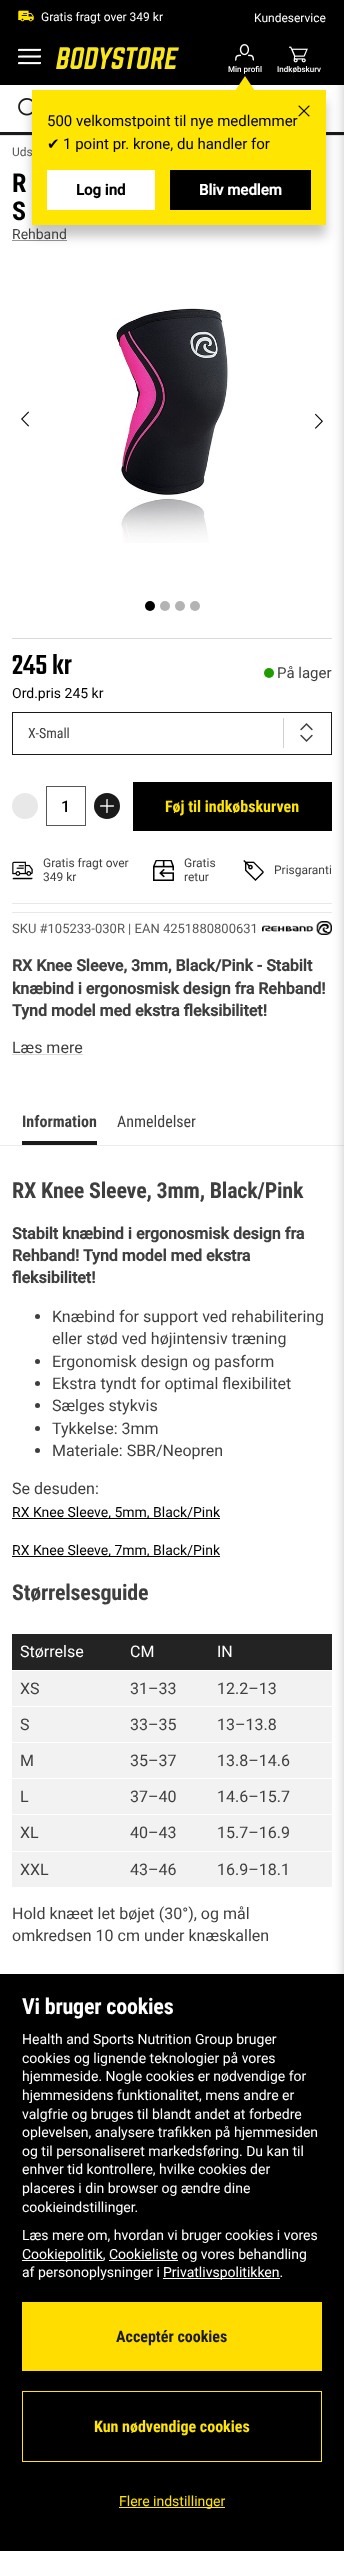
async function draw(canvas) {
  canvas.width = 344;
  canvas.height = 2551;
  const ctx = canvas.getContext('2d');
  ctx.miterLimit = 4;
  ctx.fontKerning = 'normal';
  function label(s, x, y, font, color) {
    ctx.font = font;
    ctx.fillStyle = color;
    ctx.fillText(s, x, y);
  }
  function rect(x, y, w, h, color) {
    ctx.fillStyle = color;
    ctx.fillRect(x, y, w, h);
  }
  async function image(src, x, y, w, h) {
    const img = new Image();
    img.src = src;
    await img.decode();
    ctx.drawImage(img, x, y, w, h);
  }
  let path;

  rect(0, 0, 344, 2551, '#fff');
  rect(0, 0, 344, 85, '#000');
  await image('assets/img1.png', 18, 10, 16, 12);
  label('Gratis fragt over 349 kr', 41, 21, '12px Roboto', '#fff');
  label('Kundeservice', 254, 22, '12px Roboto', '#fff');
  await image('assets/img2.png', 18, 48, 23, 17);
  await image('assets/img3.png', 56, 47, 123, 22);
  await image('assets/img4.png', 235, 44, 19, 17);
  label('Min profil', 228, 72, '500 8px Roboto', '#fff');
  await image('assets/img7.png', 18, 98, 14, 18);
  rect(0, 132, 344, 3, '#1a1a1a');
  rect(0, 135, 344, 1, '#e4e4e7');
  rect(12, 240, 55, 1, '#979797');
  ctx.fillStyle = '#0000003b';
  ctx.filter = 'blur(5.5px)';
  ctx.beginPath();
  ctx.rect(32, 101, 294, 135);
  ctx.fill();
  ctx.filter = 'none';
  label('Uds', 12, 156, '12px Roboto', '#575757');
  rect(32, 90, 294, 135, '#fee502');
  path = new Path2D('M255 91H235L245 76Z');
  ctx.fill(path);
  label('500 velkomstpoint til nye medlemmer', 47, 126, '15px Roboto', '#000');
  rect(297, 117, 1, 1, '#fee502');
  await image('assets/img5.png', 298, 105, 12, 12);
  label('✔', 47, 149, '15px DejaVu Sans', '#000');
  label('1 point pr. krone, du handler for', 63, 149, '15px Roboto', '#000');
  rect(47, 170, 108, 40, '#fff');
  label('Log ind', 76, 195, 'bold 15px Roboto', '#000');
  rect(170, 170, 141, 40, '#000');
  label('Bliv medlem', 199, 195, 'bold 15px Roboto', '#fff');
  await image('assets/img6.png', 289, 46, 19, 17);
  label('Indkøbskurv', 277, 72, '500 8px Roboto', '#fff');
  rect(12, 638, 320, 1, '#dadada');
  ctx.strokeStyle = '#1a1a1a';
  ctx.strokeRect(12.5, 712.5, 319, 42);
  rect(133, 782, 199, 49, '#000');
  rect(12, 903, 320, 1, '#e8e8e8');
  rect(12, 912, 320, 1, '#e8e8e8');
  await image('assets/img16.png', 262, 921, 70, 14);
  rect(0, 1145, 344, 1, '#ececec');
  rect(12, 1634, 320, 36, '#232323');
  rect(12, 1671, 320, 216, '#f2f2f2');
  rect(12, 1706, 321, 1, '#fff');
  rect(12, 1742, 321, 1, '#fff');
  rect(12, 1778, 321, 1, '#fff');
  rect(12, 1814, 321, 1, '#fff');
  rect(12, 1851, 321, 1, '#fff');
  ctx.fillStyle = '#0000003b';
  ctx.filter = 'blur(5.5px)';
  ctx.beginPath();
  ctx.rect(344, 0, 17, 2551);
  ctx.fill();
  ctx.filter = 'none';
  ctx.letterSpacing = '-0.2px';
  label('R', 12, 192, 'bold 26px Roboto Condensed', '#000');
  label('S', 12, 220, 'bold 26px Roboto Condensed', '#000');
  ctx.letterSpacing = '0px';
  label('Rehband', 12, 239, '14px Roboto', '#3f3f3f');
  await image('assets/img8.png', 21, 411, 8, 16);
  await image('assets/img9.png', 115, 308, 114, 235);
  await image('assets/img10.png', 315, 413, 8, 16);
  ctx.fillStyle = '#000';
  ctx.beginPath();
  ctx.arc(150, 606, 5, 0, 2 * Math.PI);
  ctx.fill();
  ctx.fillStyle = '#b3b3b3';
  ctx.beginPath();
  ctx.arc(165, 606, 5, 0, 2 * Math.PI);
  ctx.fill();
  ctx.beginPath();
  ctx.arc(180, 606, 5, 0, 2 * Math.PI);
  ctx.fill();
  ctx.beginPath();
  ctx.arc(195, 606, 5, 0, 2 * Math.PI);
  ctx.fill();
  label('245 kr', 12, 674, '300 30px Teko', '#000');
  label('Ord.pris 245 kr', 12, 698, '14px Roboto', '#000');
  ctx.fillStyle = '#209c00';
  ctx.beginPath();
  ctx.arc(269, 673, 5, 0, 2 * Math.PI);
  ctx.fill();
  label('På lager', 277, 678, '15px Roboto', '#3f3f3f');
  label('X-Small', 28, 738, '14px Roboto Condensed', '#3f3f3f');
  rect(283, 718, 1, 30, '#d1d1d1');
  await image('assets/img11.png', 300, 723, 13, 19);
  ctx.fillStyle = '#e8e8e8';
  ctx.beginPath();
  ctx.arc(25, 806, 13, 0, 2 * Math.PI);
  ctx.fill();
  ctx.strokeStyle = '#575757';
  ctx.strokeRect(46.5, 786.5, 39, 39);
  label('1', 61, 812, '500 16px Roboto', '#000');
  ctx.fillStyle = '#1a1a1a';
  ctx.beginPath();
  ctx.arc(107, 806, 13, 0, 2 * Math.PI);
  ctx.fill();
  await image('assets/img12.png', 100, 799, 14, 14);
  label('Føj til indkøbskurven', 165, 812, 'bold 16px Roboto Condensed', '#fee502');
  await image('assets/img13.png', 12, 861, 21, 19);
  label('Gratis fragt over', 43, 867, '12px Roboto', '#3f3f3f');
  label('349 kr', 43, 881, '12px Roboto', '#3f3f3f');
  await image('assets/img14.png', 153, 860, 21, 21);
  label('Gratis', 184, 867, '12px Roboto', '#3f3f3f');
  label('retur', 184, 881, '12px Roboto', '#3f3f3f');
  await image('assets/img15.png', 243, 860, 21, 21);
  label('Prisgaranti', 274, 874, '12px Roboto', '#3f3f3f');
  label('SKU #105233-030R | EAN 4251880800631', 12, 933, '13px Roboto', '#575757');
  label('RX Knee Sleeve, 3mm, Black/Pink - Stabilt', 12, 971, 'bold 16px Roboto', '#3f3f3f');
  label('knæbind i ergonosmisk design fra Rehband!', 12, 994, 'bold 16px Roboto', '#3f3f3f');
  label('Tynd model med ekstra fleksibilitet!', 12, 1016, 'bold 16px Roboto', '#3f3f3f');
  label('Læs mere', 12, 1053, '16px Roboto', '#3f3f3f');
  rect(12, 1054, 71, 1, '#dadada');
  label('Information', 22, 1127, 'bold 16px Roboto Condensed', '#3f3f3f');
  rect(22, 1141, 75, 4, '#1a1a1a');
  label('Anmeldelser', 117, 1127, '16px Roboto Condensed', '#3f3f3f');
  ctx.letterSpacing = '-0.2px';
  label('RX Knee Sleeve, 3mm, Black/Pink', 12, 1198, 'bold 22px Roboto Condensed', '#3f3f3f');
  ctx.letterSpacing = '0px';
  label('Stabilt knæbind i ergonosmisk design fra', 12, 1239, 'bold 16px Roboto', '#3f3f3f');
  label('Rehband! Tynd model med ekstra', 12, 1261, 'bold 16px Roboto', '#3f3f3f');
  label('fleksibilitet!', 12, 1283, 'bold 16px Roboto', '#3f3f3f');
  ctx.fillStyle = '#3e3e3e';
  ctx.beginPath();
  ctx.arc(37.5, 1316.5, 2.5, 0, 2 * Math.PI);
  ctx.fill();
  label('Knæbind for support ved rehabilitering', 52, 1322, '16px Roboto', '#3f3f3f');
  label('eller stød ved højintensiv træning', 52, 1344, '16px Roboto', '#3f3f3f');
  ctx.fillStyle = '#3e3e3e';
  ctx.beginPath();
  ctx.arc(37.5, 1361.5, 2.5, 0, 2 * Math.PI);
  ctx.fill();
  label('Ergonomisk design og pasform', 52, 1367, '16px Roboto', '#3f3f3f');
  ctx.fillStyle = '#3e3e3e';
  ctx.beginPath();
  ctx.arc(37.5, 1383.5, 2.5, 0, 2 * Math.PI);
  ctx.fill();
  label('Ekstra tyndt for optimal flexibilitet', 52, 1389, '16px Roboto', '#3f3f3f');
  ctx.fillStyle = '#3e3e3e';
  ctx.beginPath();
  ctx.arc(37.5, 1405.5, 2.5, 0, 2 * Math.PI);
  ctx.fill();
  label('Sælges stykvis', 52, 1411, '16px Roboto', '#3f3f3f');
  ctx.fillStyle = '#3e3e3e';
  ctx.beginPath();
  ctx.arc(37.5, 1428.5, 2.5, 0, 2 * Math.PI);
  ctx.fill();
  label('Tykkelse: 3mm', 52, 1434, '16px Roboto', '#3f3f3f');
  ctx.fillStyle = '#3e3e3e';
  ctx.beginPath();
  ctx.arc(37.5, 1450.5, 2.5, 0, 2 * Math.PI);
  ctx.fill();
  label('Materiale: SBR/Neopren', 52, 1456, '16px Roboto', '#3f3f3f');
  label('Se desuden:', 12, 1494, '16px Roboto', '#3f3f3f');
  rect(12, 1518, 208, 1, '#000');
  label('RX Knee Sleeve, 5mm, Black/Pink', 12, 1517, '14px Roboto', '#000');
  rect(12, 1556, 208, 1, '#000');
  label('RX Knee Sleeve, 7mm, Black/Pink', 12, 1555, '14px Roboto', '#000');
  ctx.letterSpacing = '-0.2px';
  label('Størrelsesguide', 12, 1600, 'bold 22px Roboto Condensed', '#3f3f3f');
  ctx.letterSpacing = '0px';
  label('Størrelse', 20, 1657, '16px Roboto', '#fff');
  label('CM', 130, 1657, '16px Roboto', '#fff');
  label('IN', 217, 1657, '16px Roboto', '#fff');
  label('XS', 20, 1694, '16px Roboto', '#3f3f3f');
  label('31–33', 130, 1694, '16px Roboto', '#3f3f3f');
  label('12.2–13', 217, 1694, '16px Roboto', '#3f3f3f');
  label('S', 20, 1730, '16px Roboto', '#3f3f3f');
  label('33–35', 130, 1730, '16px Roboto', '#3f3f3f');
  label('13–13.8', 217, 1730, '16px Roboto', '#3f3f3f');
  label('M', 20, 1766, '16px Roboto', '#3f3f3f');
  label('35–37', 130, 1766, '16px Roboto', '#3f3f3f');
  label('13.8–14.6', 217, 1766, '16px Roboto', '#3f3f3f');
  label('L', 20, 1802, '16px Roboto', '#3f3f3f');
  label('37–40', 130, 1802, '16px Roboto', '#3f3f3f');
  label('14.6–15.7', 217, 1802, '16px Roboto', '#3f3f3f');
  label('XL', 20, 1838, '16px Roboto', '#3f3f3f');
  label('40–43', 130, 1838, '16px Roboto', '#3f3f3f');
  label('15.7–16.9', 217, 1838, '16px Roboto', '#3f3f3f');
  label('XXL', 20, 1875, '16px Roboto', '#3f3f3f');
  label('43–46', 130, 1875, '16px Roboto', '#3f3f3f');
  label('16.9–18.1', 217, 1875, '16px Roboto', '#3f3f3f');
  label('Hold knæet let bøjet (30°), og mål', 12, 1919, '16px Roboto', '#3f3f3f');
  label('omkredsen 10 cm under knæskallen', 12, 1941, '16px Roboto', '#3f3f3f');
  rect(0, 1974, 344, 577, '#000');
  ctx.letterSpacing = '-0.2px';
  label('Vi bruger cookies', 22, 2014, 'bold 22px Roboto Condensed', '#fff');
  ctx.letterSpacing = '0px';
  label('Health and Sports Nutrition Group bruger', 22, 2044, '14px Roboto', '#fff');
  label('cookies og lignende teknologier på vores', 22, 2063, '14px Roboto', '#fff');
  label('hjemmeside. Nogle cookies er nødvendige for', 22, 2081, '14px Roboto', '#fff');
  label('hjemmesidens funktionalitet, mens andre er', 22, 2100, '14px Roboto', '#fff');
  label('valgfrie og bruges til blandt andet at forbedre', 22, 2119, '14px Roboto', '#fff');
  label('oplevelsen, analysere trafikken på hjemmesiden', 22, 2137, '14px Roboto', '#fff');
  label('og til personaliseret markedsføring. Du kan til', 22, 2156, '14px Roboto', '#fff');
  label('enhver tid kontrollere, hvilke cookies der', 22, 2174, '14px Roboto', '#fff');
  label('placeres i din browser og ændre dine', 22, 2193, '14px Roboto', '#fff');
  label('cookieindstillinger.', 22, 2212, '14px Roboto', '#fff');
  label('Læs mere om, hvordan vi bruger cookies i vores', 22, 2240, '14px Roboto', '#fff');
  rect(22, 2260, 81, 1, '#fff');
  label('Cookiepolitik, Cookieliste og vores behandling', 22, 2259, '14px Roboto', '#fff');
  rect(109, 2260, 69, 1, '#fff');
  label('af personoplysninger i', 22, 2277, '14px Roboto', '#fff');
  rect(163, 2278, 117, 1, '#fff');
  label('Privatlivspolitikken.', 163, 2277, '14px Roboto', '#fff');
  rect(22, 2302, 300, 69, '#fd0');
  label('Acceptér cookies', 116, 2342, 'bold 16px Roboto Condensed', '#1a1a1a');
  ctx.strokeStyle = '#fee502';
  ctx.strokeRect(22.5, 2391.5, 299, 70);
  label('Kun nødvendige cookies', 94, 2432, 'bold 16px Roboto Condensed', '#fee502');
  rect(119, 2507, 106, 1, '#fee502');
  label('Flere indstillinger', 119, 2506, '14px Roboto', '#fee502');
}

draw(document.querySelector('canvas'));
